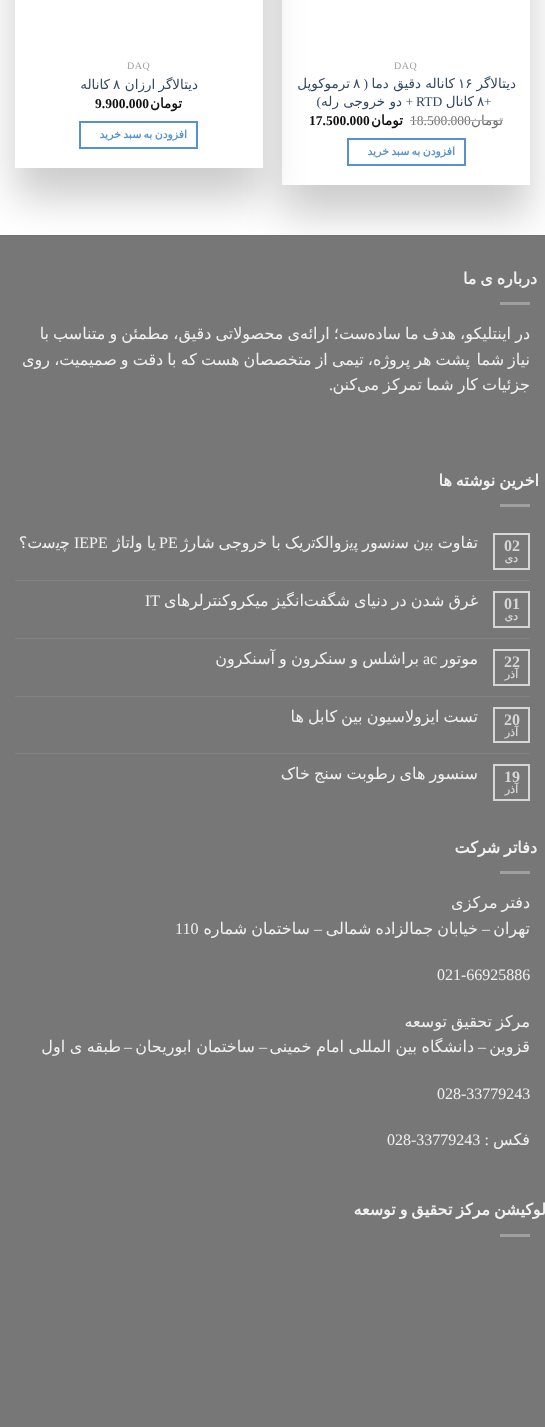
async function draw(canvas) {
  canvas.width = 545;
  canvas.height = 1427;
  const ctx = canvas.getContext('2d');
  ctx.miterLimit = 4;
  ctx.fontKerning = 'normal';
  function label(s, x, y, font, color) {
    ctx.font = font;
    ctx.fillStyle = color;
    ctx.fillText(s, x, y);
  }
  function rect(x, y, w, h, color) {
    ctx.fillStyle = color;
    ctx.fillRect(x, y, w, h);
  }
  let path;

  rect(0, 0, 545, 1427, '#fff');
  ctx.save();
  path = new Path2D('M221 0H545V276H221ZM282-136H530V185H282Z');
  ctx.clip(path, 'evenodd');
  ctx.fillStyle = '#00000033';
  ctx.filter = 'blur(20px)';
  ctx.beginPath();
  ctx.rect(282, -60, 248, 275);
  ctx.fill();
  ctx.filter = 'none';
  ctx.restore();
  ctx.letterSpacing = '0.5px';
  label('DAQ', 394, 69, '10px Liberation Serif', '#a0a0a0');
  ctx.letterSpacing = '0px';
  ctx.direction = 'rtl';
  label('دیتالاگر', 516, 88, '13.5px DejaVu Sans', '#334862');
  ctx.direction = 'ltr';
  label('۱۶', 458, 88, '13.5px DejaVu Sans', '#334862');
  ctx.direction = 'rtl';
  label('کاناله دقیق دما', 455, 88, '13.5px DejaVu Sans', '#334862');
  label('(', 368, 88, '13.5px Liberation Serif', '#334862');
  ctx.direction = 'ltr';
  label('۸', 353, 88, '13.5px DejaVu Sans', '#334862');
  ctx.direction = 'rtl';
  label('ترموکوپل', 350, 88, '13.5px DejaVu Sans', '#334862');
  ctx.direction = 'ltr';
  label('+', 484, 106, '13.5px Liberation Serif', '#334862');
  label('۸', 477, 106, '13.5px DejaVu Sans', '#334862');
  ctx.direction = 'rtl';
  label('کانال', 474, 106, '13.5px DejaVu Sans', '#334862');
  ctx.direction = 'ltr';
  label('RTD', 416, 106, '13.5px Liberation Serif', '#334862');
  ctx.direction = 'rtl';
  label('+', 413, 106, '13.5px Liberation Serif', '#334862');
  label('دو خروجی رله', 402, 106, '13.5px DejaVu Sans', '#334862');
  label(')', 321, 106, '13.5px Liberation Serif', '#334862');
  label('تومان', 503, 125, '13.5px DejaVu Sans', '#707070');
  ctx.direction = 'ltr';
  label('18.500.000', 410, 125, '13.5px Liberation Serif', '#707070');
  rect(471, 120, 32, 1, '#adadad');
  rect(410, 120, 61, 1, '#adadad');
  ctx.direction = 'rtl';
  label('تومان', 403, 125, 'bold 13.5px DejaVu Sans', '#111');
  ctx.direction = 'ltr';
  label('17.500.000', 309, 125, 'bold 13.5px Liberation Serif', '#111');
  ctx.strokeStyle = '#5592cf';
  ctx.lineWidth = 2;
  ctx.strokeRect(348, 139, 117, 26);
  ctx.letterSpacing = '0.3px';
  ctx.wordSpacing = '-1.5px';
  ctx.direction = 'rtl';
  label('افزودن به سبد خرید', 455, 155, 'bold 10.9px DejaVu Sans', '#5592cf');
  ctx.fillStyle = '#00000033';
  ctx.filter = 'blur(20px)';
  ctx.beginPath();
  ctx.rect(15, -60, 248, 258);
  ctx.fill();
  ctx.filter = 'none';
  rect(15, 0, 248, 168, '#fff');
  ctx.letterSpacing = '0.5px';
  ctx.wordSpacing = '0px';
  ctx.direction = 'ltr';
  label('DAQ', 127, 69, '10px Liberation Serif', '#a0a0a0');
  ctx.letterSpacing = '0px';
  ctx.wordSpacing = '-1px';
  ctx.direction = 'rtl';
  label('دیتالاگر ارزان', 198, 89, '13.5px DejaVu Sans', '#334862');
  ctx.wordSpacing = '0px';
  ctx.direction = 'ltr';
  label('۸', 113, 89, '13.5px DejaVu Sans', '#334862');
  ctx.direction = 'rtl';
  label('کاناله', 110, 89, '13.5px DejaVu Sans', '#334862');
  label('تومان', 182, 108, 'bold 13.5px DejaVu Sans', '#111');
  ctx.direction = 'ltr';
  label('9.900.000', 95, 108, 'bold 13.5px Liberation Serif', '#111');
  ctx.strokeRect(80, 122, 117, 26);
  ctx.letterSpacing = '0.3px';
  ctx.wordSpacing = '-1.5px';
  ctx.direction = 'rtl';
  label('افزودن به سبد خرید', 187, 138, 'bold 10.9px DejaVu Sans', '#5592cf');
  rect(0, 236, 545, 1191, '#777');
  rect(0, 235, 545, 1, '#717171');
  ctx.letterSpacing = '0.8px';
  ctx.wordSpacing = '-2px';
  label('درباره ی ما', 537, 284, 'bold 16px DejaVu Sans', '#f1f1f1');
  rect(500, 302, 30, 3, '#a0a0a0');
  ctx.letterSpacing = '0px';
  ctx.wordSpacing = '-1px';
  label('در اینتلیکو، هدف ما ساده', 530, 339, '16px DejaVu Sans', '#f1f1f1');
  label('ی محصولاتی دقیق، مطمئن و متناسب با', 300, 339, '16px DejaVu Sans', '#f1f1f1');
  label('ست؛ ارائه', 368, 339, '16px DejaVu Sans', '#f1f1f1');
  label('نیاز شما', 530, 365, '16px DejaVu Sans', '#f1f1f1');
  label('پشت هر پروژه، تیمی از متخصصان هست که با دقت و صمیمیت، روی', 470, 365, '16px DejaVu Sans', '#f1f1f1');
  label('جزئیات کار شما تمرکز می', 530, 390, '16px DejaVu Sans', '#f1f1f1');
  ctx.wordSpacing = '0px';
  label('کنن', 357, 390, '16px DejaVu Sans', '#f1f1f1');
  label('.', 333, 390, '16px Liberation Serif', '#f1f1f1');
  ctx.letterSpacing = '0.8px';
  ctx.wordSpacing = '-2px';
  label('اخرین نوشته ها', 539, 486, 'bold 16px DejaVu Sans', '#f1f1f1');
  rect(500, 504, 30, 3, '#a0a0a0');
  ctx.strokeStyle = '#d6d6d6';
  ctx.strokeRect(494, 534, 35, 35);
  ctx.letterSpacing = '0px';
  ctx.wordSpacing = '0px';
  ctx.direction = 'ltr';
  label('02', 504, 551, 'bold 16px Liberation Serif', '#d6d6d6');
  ctx.direction = 'rtl';
  label('دی', 518, 562, 'bold 11px DejaVu Sans', '#d6d6d6');
  ctx.wordSpacing = '-1px';
  label('ﺗﻔﺎﻭﺕ ﺑﻳﻥ ﺳﻧﺳﻭﺭ ﭘﻳﺯﻭﺍﻟﮑﺗﺭﻳﮏ ﺑﺎ ﺧﺭﻭﺟﯽ ﺷﺎﺭﮊ', 478, 548, '16px DejaVu Sans', '#f1f1f1');
  ctx.wordSpacing = '0px';
  ctx.direction = 'ltr';
  label('PE', 159, 548, '16px Liberation Serif', '#f1f1f1');
  ctx.wordSpacing = '-1px';
  ctx.direction = 'rtl';
  label('ﻳﺎ ﻭﻟﺗﺎﮊ', 156, 548, '16px DejaVu Sans', '#f1f1f1');
  ctx.wordSpacing = '0px';
  ctx.direction = 'ltr';
  label('IEPE', 74, 548, '16px Liberation Serif', '#f1f1f1');
  ctx.direction = 'rtl';
  label('ﭼﻳﺳﺕ؟', 70, 548, '16px DejaVu Sans', '#f1f1f1');
  rect(15, 580, 515, 1, '#828282');
  ctx.strokeRect(494, 592, 35, 35);
  ctx.direction = 'ltr';
  label('01', 504, 609, 'bold 16px Liberation Serif', '#d6d6d6');
  ctx.direction = 'rtl';
  label('دی', 518, 620, 'bold 11px DejaVu Sans', '#d6d6d6');
  ctx.wordSpacing = '-1px';
  label('غرق شدن در دنیای شگفت', 478, 606, '16px DejaVu Sans', '#f1f1f1');
  label('انگیز میکروکنترلرهای', 304, 606, '16px DejaVu Sans', '#f1f1f1');
  ctx.wordSpacing = '0px';
  ctx.direction = 'ltr';
  label('IT', 145, 606, '16px Liberation Serif', '#f1f1f1');
  rect(15, 638, 515, 1, '#828282');
  ctx.strokeRect(494, 650, 35, 35);
  label('22', 504, 667, 'bold 16px Liberation Serif', '#d6d6d6');
  ctx.direction = 'rtl';
  label('آذر', 518, 678, 'bold 11px DejaVu Sans', '#d6d6d6');
  label('موتور', 478, 664, '16px DejaVu Sans', '#f1f1f1');
  ctx.direction = 'ltr';
  label('ac', 423, 664, '16px Liberation Serif', '#f1f1f1');
  ctx.wordSpacing = '-1px';
  ctx.direction = 'rtl';
  label('براشلس و سنکرون و آسنکرون', 419, 664, '16px DejaVu Sans', '#f1f1f1');
  rect(15, 696, 515, 1, '#828282');
  ctx.strokeRect(494, 708, 35, 34);
  ctx.wordSpacing = '0px';
  ctx.direction = 'ltr';
  label('20', 504, 725, 'bold 16px Liberation Serif', '#d6d6d6');
  ctx.direction = 'rtl';
  label('آذر', 518, 736, 'bold 11px DejaVu Sans', '#d6d6d6');
  ctx.wordSpacing = '-1px';
  label('تست ایزولاسیون بین کابل ها', 478, 722, '16px DejaVu Sans', '#f1f1f1');
  rect(15, 753, 515, 1, '#828282');
  ctx.strokeRect(494, 765, 35, 35);
  ctx.wordSpacing = '0px';
  ctx.direction = 'ltr';
  label('19', 504, 782, 'bold 16px Liberation Serif', '#d6d6d6');
  ctx.direction = 'rtl';
  label('آذر', 518, 793, 'bold 11px DejaVu Sans', '#d6d6d6');
  ctx.wordSpacing = '-1px';
  label('سنسور های رطوبت سنج خاک', 478, 779, '16px DejaVu Sans', '#f1f1f1');
  ctx.letterSpacing = '0.8px';
  ctx.wordSpacing = '-2px';
  label('دفاتر شرکت', 537, 853, 'bold 16px DejaVu Sans', '#f1f1f1');
  rect(500, 871, 30, 3, '#a0a0a0');
  ctx.letterSpacing = '0px';
  ctx.wordSpacing = '-1px';
  label('دفتر مرکزی', 530, 908, '16px DejaVu Sans', '#f1f1f1');
  ctx.wordSpacing = '0px';
  label('تهران', 530, 934, '16px DejaVu Sans', '#f1f1f1');
  label('–', 490, 934, '16px Liberation Serif', '#f1f1f1');
  ctx.wordSpacing = '-1px';
  label('خیابان جمالزاده شمالی', 478, 934, '16px DejaVu Sans', '#f1f1f1');
  ctx.wordSpacing = '0px';
  label('–', 322, 934, '16px Liberation Serif', '#f1f1f1');
  ctx.wordSpacing = '-1px';
  label('ساختمان شماره', 310, 934, '16px DejaVu Sans', '#f1f1f1');
  ctx.wordSpacing = '0px';
  ctx.direction = 'ltr';
  label('110', 175, 934, '16px Liberation Serif', '#f1f1f1');
  label('021-66925886', 437, 980, '16px Liberation Serif', '#f1f1f1');
  ctx.wordSpacing = '-1px';
  ctx.direction = 'rtl';
  label('مرکز تحقیق توسعه', 530, 1027, '16px DejaVu Sans', '#f1f1f1');
  ctx.wordSpacing = '0px';
  label('قزوین', 530, 1052, '16px DejaVu Sans', '#f1f1f1');
  label('–', 486, 1052, '16px Liberation Serif', '#f1f1f1');
  ctx.wordSpacing = '-0.5px';
  label('دانشگاه بین المللی امام خمینی', 474, 1052, '16px DejaVu Sans', '#f1f1f1');
  ctx.wordSpacing = '0px';
  label('–', 267, 1052, '16px Liberation Serif', '#f1f1f1');
  ctx.wordSpacing = '-0.5px';
  label('ساختمان ابوریحان', 255, 1052, '16px DejaVu Sans', '#f1f1f1');
  ctx.wordSpacing = '0px';
  label('–', 132, 1052, '16px Liberation Serif', '#f1f1f1');
  ctx.wordSpacing = '-0.5px';
  label('طبقه ی اول', 121, 1052, '16px DejaVu Sans', '#f1f1f1');
  ctx.wordSpacing = '0px';
  ctx.direction = 'ltr';
  label('028-33779243', 437, 1099, '16px Liberation Serif', '#f1f1f1');
  ctx.direction = 'rtl';
  label('فکس', 530, 1145, '16px DejaVu Sans', '#f1f1f1');
  label(':', 489, 1145, '16px Liberation Serif', '#f1f1f1');
  ctx.direction = 'ltr';
  label('028-33779243', 387, 1145, '16px Liberation Serif', '#f1f1f1');
  ctx.letterSpacing = '0.8px';
  ctx.wordSpacing = '-2px';
  ctx.direction = 'rtl';
  label('لوکیشن مرکز تحقیق و توسعه', 546, 1215, 'bold 16px DejaVu Sans', '#f1f1f1');
  rect(500, 1234, 30, 3, '#a0a0a0');
}

draw(document.querySelector('canvas'));
